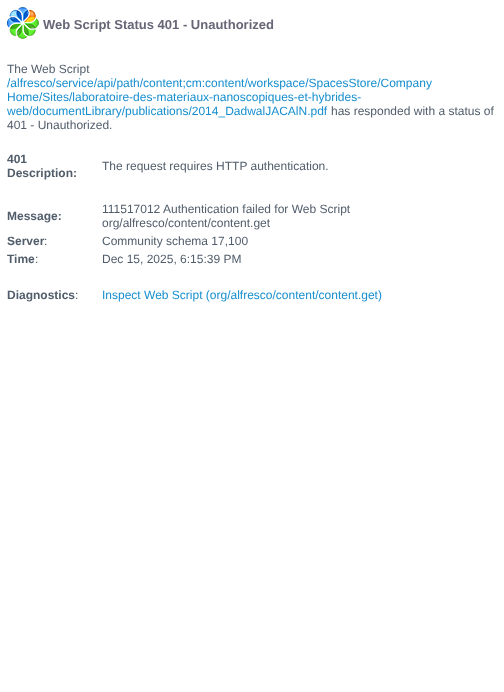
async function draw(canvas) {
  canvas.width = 504;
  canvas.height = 692;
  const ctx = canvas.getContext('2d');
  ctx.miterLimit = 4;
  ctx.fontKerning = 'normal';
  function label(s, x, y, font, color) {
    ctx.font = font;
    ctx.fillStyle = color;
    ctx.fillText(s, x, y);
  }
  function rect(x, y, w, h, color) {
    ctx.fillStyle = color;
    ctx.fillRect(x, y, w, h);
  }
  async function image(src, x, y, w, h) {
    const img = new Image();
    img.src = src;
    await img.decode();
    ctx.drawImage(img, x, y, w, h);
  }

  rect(0, 0, 504, 692, '#fff');
  await image('assets/img1.png', 7, 7, 32, 32);
  label('Web Script Status 401 - Unauthorized', 43, 29, 'bold 13px Liberation Sans', '#667');
  label('The Web Script', 7, 73, '12px Liberation Sans', '#515d6b');
  label('/alfresco/service/api/path/content;cm:content/workspace/SpacesStore/Company', 7, 87, '12px Liberation Sans', '#168ece');
  label('Home/Sites/laboratoire-des-materiaux-nanoscopiques-et-hybrides-', 7, 101, '12px Liberation Sans', '#168ece');
  label('web/documentLibrary/publications/2014_DadwalJACAlN.pdf', 7, 115, '12px Liberation Sans', '#168ece');
  label('has responded with a status of', 331, 115, '12px Liberation Sans', '#515d6b');
  label('401 - Unauthorized.', 7, 129, '12px Liberation Sans', '#515d6b');
  label('401', 7, 163, 'bold 12px Liberation Sans', '#515d6b');
  label('Description:', 7, 177, 'bold 12px Liberation Sans', '#515d6b');
  label('The request requires HTTP authentication.', 102, 170, '12px Liberation Sans', '#515d6b');
  label('Message:', 7, 220, 'bold 12px Liberation Sans', '#515d6b');
  label('111517012 Authentication failed for Web Script', 102, 213, '12px Liberation Sans', '#515d6b');
  label('org/alfresco/content/content.get', 102, 227, '12px Liberation Sans', '#515d6b');
  label('Server', 7, 245, 'bold 12px Liberation Sans', '#515d6b');
  label(':', 44, 245, '12px Liberation Sans', '#515d6b');
  label('Community schema 17,100', 102, 245, '12px Liberation Sans', '#515d6b');
  label('Time', 7, 263, 'bold 12px Liberation Sans', '#515d6b');
  label(':', 35, 263, '12px Liberation Sans', '#515d6b');
  label('Dec 15, 2025, 6:15:39 PM', 102, 263, '12px Liberation Sans', '#515d6b');
  label('Diagnostics', 7, 299, 'bold 12px Liberation Sans', '#515d6b');
  label(':', 75, 299, '12px Liberation Sans', '#515d6b');
  label('Inspect Web Script (org/alfresco/content/content.get)', 102, 299, '12px Liberation Sans', '#168ece');
}

draw(document.querySelector('canvas'));
